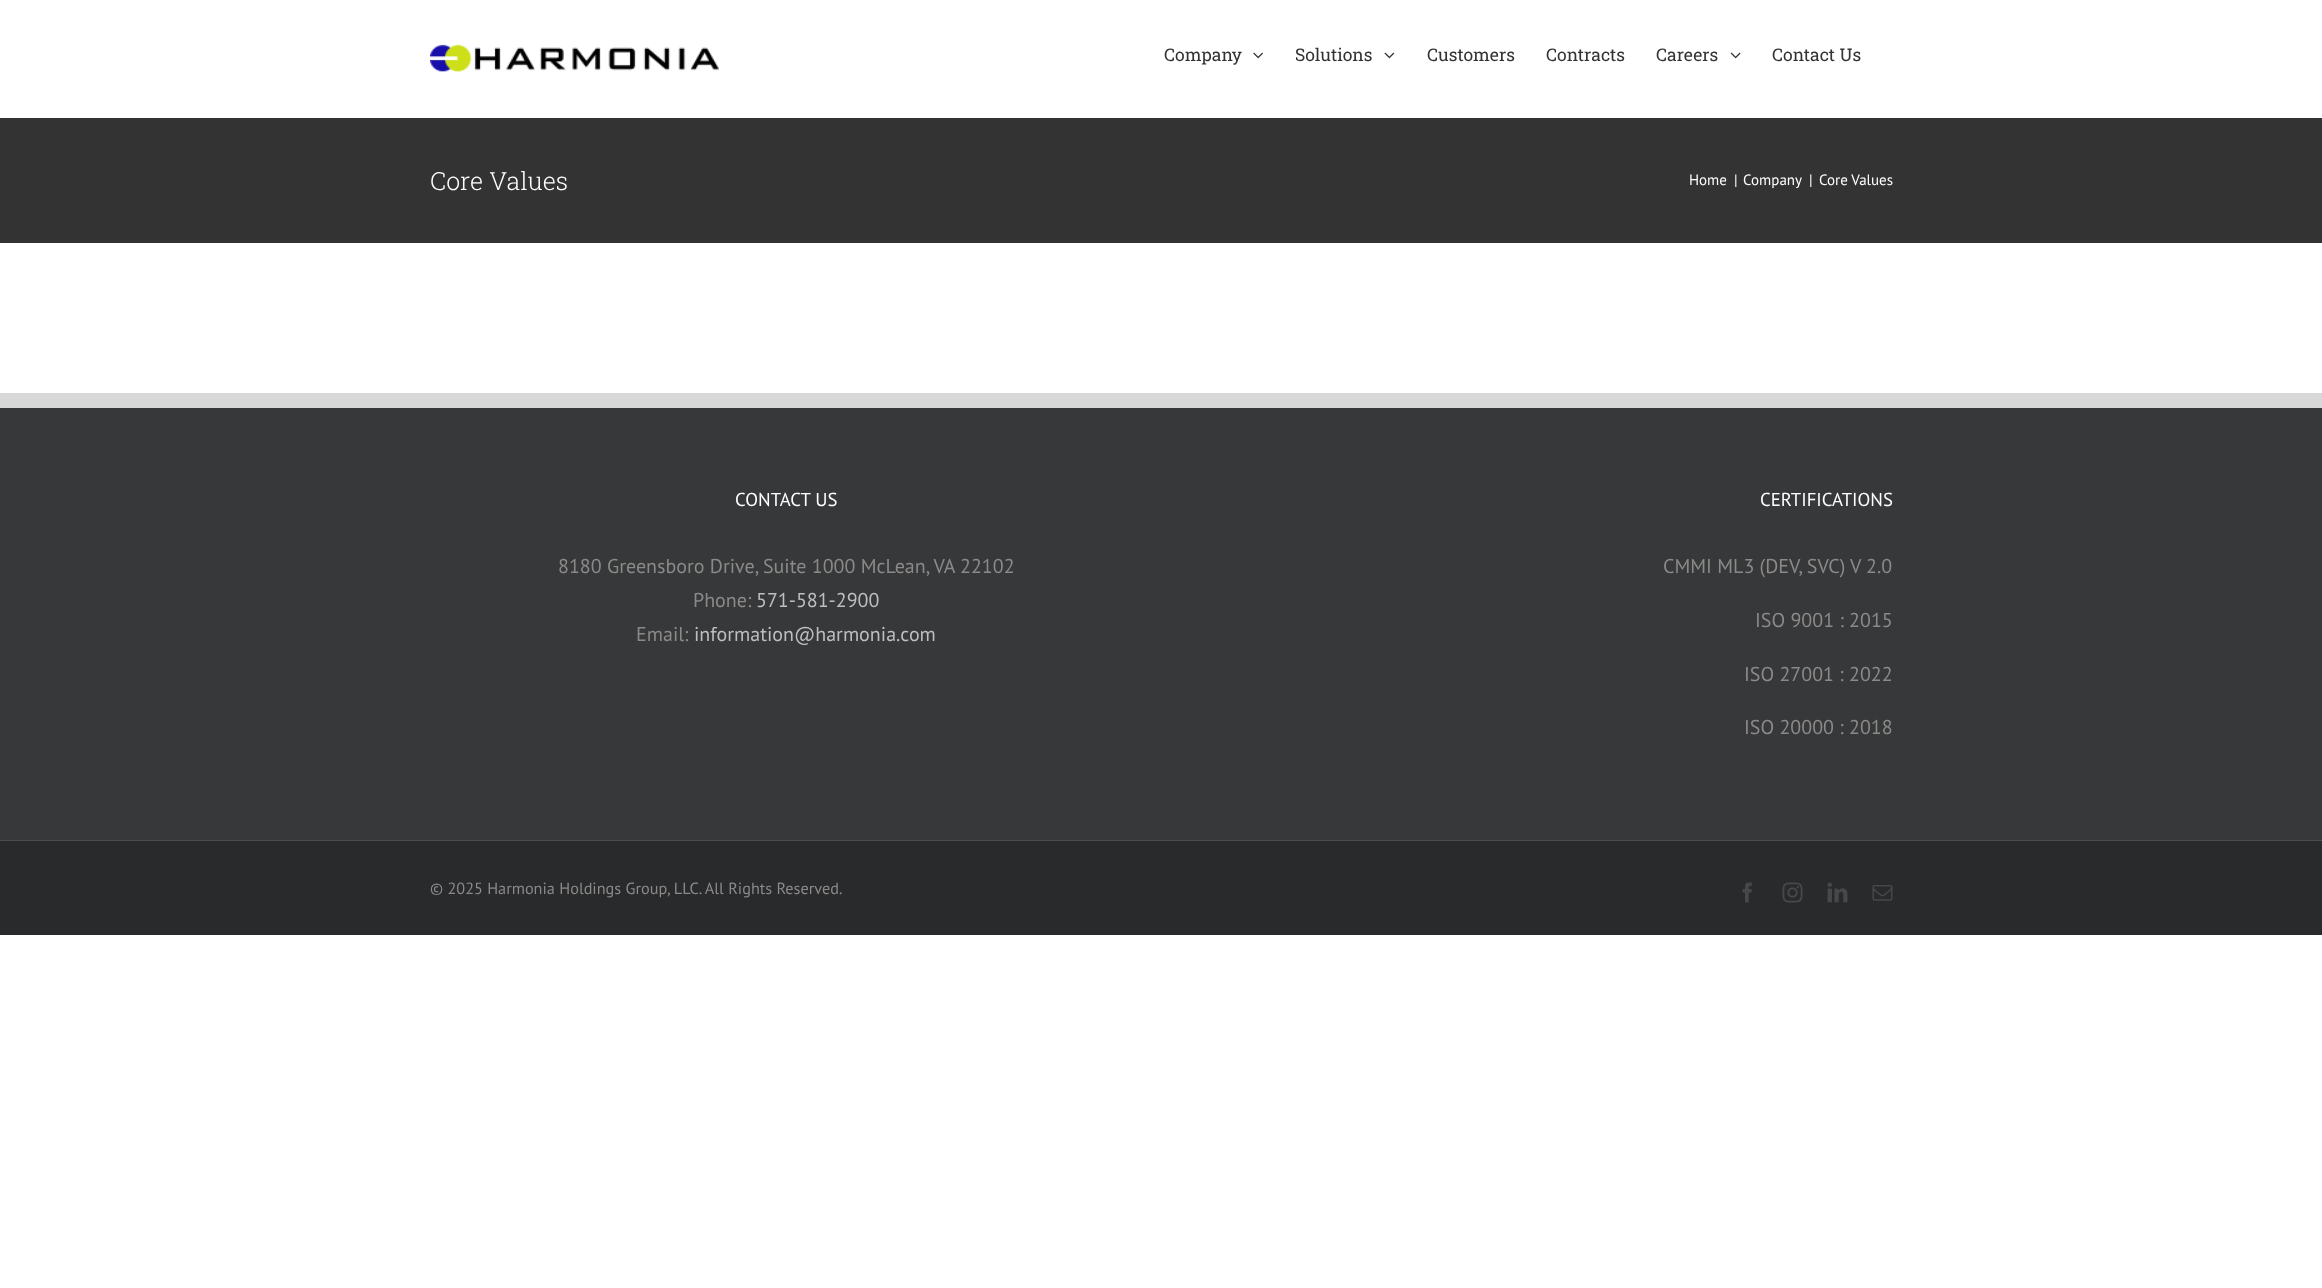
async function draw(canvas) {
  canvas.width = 2322;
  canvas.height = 1288;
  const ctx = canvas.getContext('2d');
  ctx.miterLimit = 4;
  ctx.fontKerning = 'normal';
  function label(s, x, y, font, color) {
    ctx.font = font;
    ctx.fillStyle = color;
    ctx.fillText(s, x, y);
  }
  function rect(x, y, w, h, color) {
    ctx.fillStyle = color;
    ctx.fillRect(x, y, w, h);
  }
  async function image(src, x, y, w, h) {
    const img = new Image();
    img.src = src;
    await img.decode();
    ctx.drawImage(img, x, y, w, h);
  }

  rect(0, 0, 2322, 1288, '#fff');
  await image('assets/img1.png', 430, 44, 289, 28);
  label('Company', 1164, 61, '17.5px Roboto Slab', '#333');
  await image('assets/img2.png', 1253, 52, 10, 7);
  label('Solutions', 1295, 61, '17.5px Roboto Slab', '#333');
  await image('assets/img3.png', 1384, 52, 11, 7);
  label('Customers', 1427, 61, '17.5px Roboto Slab', '#333');
  label('Contracts', 1546, 61, '17.5px Roboto Slab', '#333');
  label('Careers', 1656, 61, '17.5px Roboto Slab', '#333');
  await image('assets/img4.png', 1730, 52, 11, 7);
  label('Contact Us', 1772, 61, '17.5px Roboto Slab', '#333');
  rect(0, 118, 2322, 125, '#333');
  label('Core Values', 430, 190, '300 25px Roboto Slab', '#fff');
  label('Home', 1689, 185, '15px PT Sans', '#fff');
  label('|', 1734, 185, '15px PT Sans', '#fff');
  label('Company', 1743, 185, '15px PT Sans', '#fff');
  label('|', 1809, 185, '15px PT Sans', '#fff');
  label('Core Values', 1819, 185, '15px PT Sans', '#fff');
  rect(0, 408, 2322, 432, '#363839');
  rect(0, 393, 2322, 15, '#d8d8d8');
  label('CONTACT US', 735, 506, '18.75px PT Sans', '#fff');
  label('8180 Greensboro Drive, Suite 1000 McLean, VA 22102', 558, 573, '20px PT Sans', '#8c8989');
  label('Phone:', 693, 607, '20px PT Sans', '#8c8989');
  label('571-581-2900', 756, 607, '20px PT Sans', '#bfbfbf');
  label('Email:', 636, 641, '20px PT Sans', '#8c8989');
  label('information@harmonia.com', 694, 641, '20px PT Sans', '#bfbfbf');
  label('CERTIFICATIONS', 1760, 506, '18.75px PT Sans', '#fff');
  label('CMMI ML3 (DEV, SVC) V 2.0', 1663, 573, '20px PT Sans', '#8c8989');
  label('ISO 9001 : 2015', 1755, 627, '20px PT Sans', '#8c8989');
  label('ISO 27001 : 2022', 1744, 681, '20px PT Sans', '#8c8989');
  label('ISO 20000 : 2018', 1744, 734, '20px PT Sans', '#8c8989');
  rect(0, 841, 2322, 94, '#282a2b');
  rect(0, 840, 2322, 1, '#4b4c4d');
  label('© 2025 Harmonia Holdings Group, LLC. All Rights Reserved.', 430, 894, '16.25px PT Sans', '#8c8989');
  await image('assets/img5.png', 1742, 882, 10, 21);
  await image('assets/img6.png', 1782, 882, 21, 21);
  await image('assets/img7.png', 1827, 882, 21, 21);
  await image('assets/img8.png', 1872, 885, 21, 16);
}

draw(document.querySelector('canvas'));
